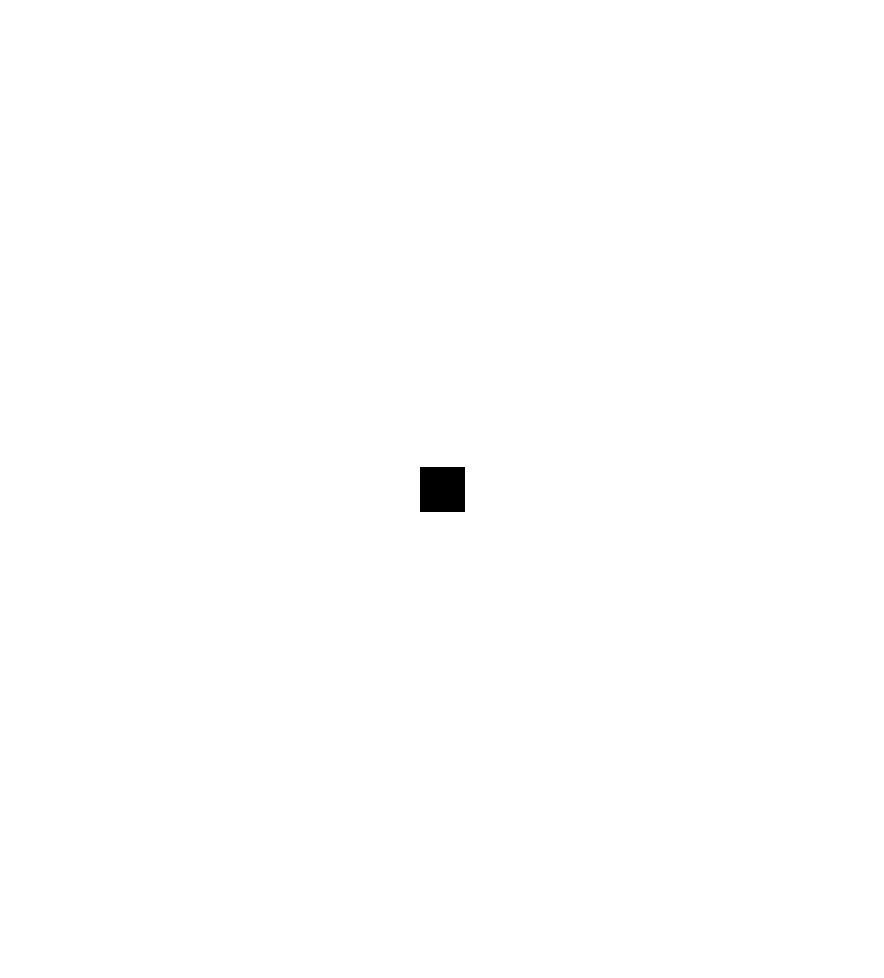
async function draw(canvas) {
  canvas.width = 884;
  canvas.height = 978;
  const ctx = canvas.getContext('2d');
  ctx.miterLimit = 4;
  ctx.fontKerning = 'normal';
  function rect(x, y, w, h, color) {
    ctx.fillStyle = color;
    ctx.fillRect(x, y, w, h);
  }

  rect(0, 0, 884, 978, '#fff');
  rect(420, 467, 45, 45, '#000');
}

draw(document.querySelector('canvas'));
